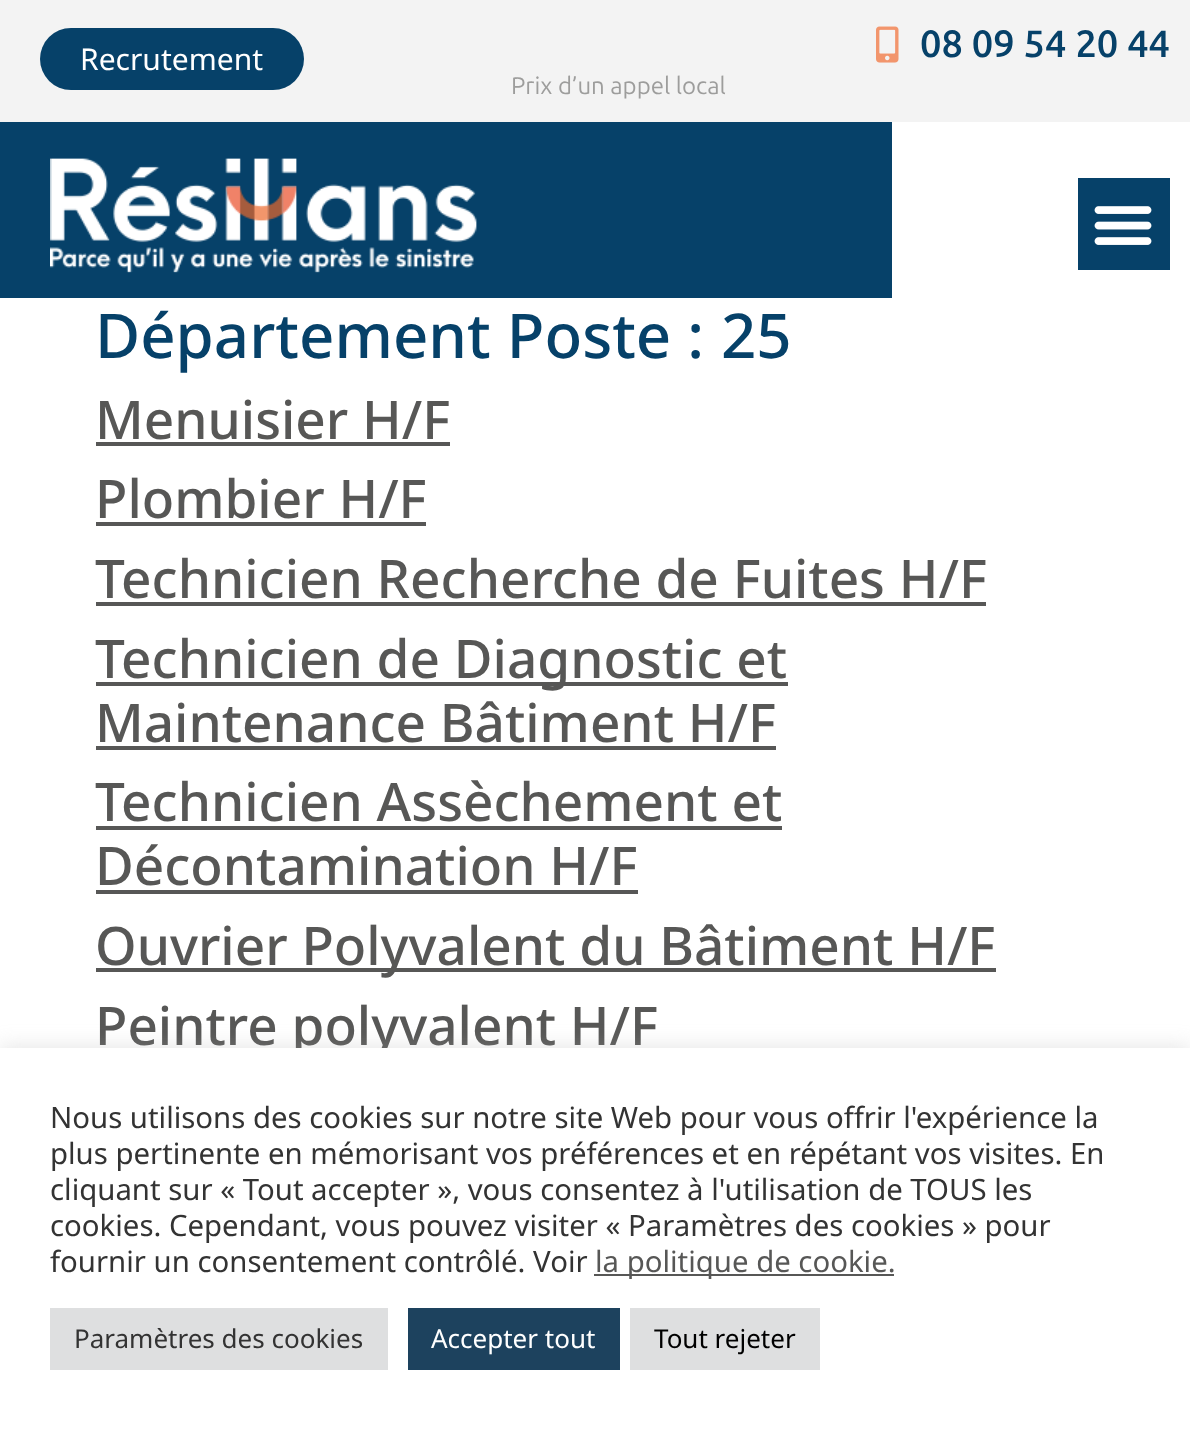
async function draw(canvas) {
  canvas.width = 1190;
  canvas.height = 1429;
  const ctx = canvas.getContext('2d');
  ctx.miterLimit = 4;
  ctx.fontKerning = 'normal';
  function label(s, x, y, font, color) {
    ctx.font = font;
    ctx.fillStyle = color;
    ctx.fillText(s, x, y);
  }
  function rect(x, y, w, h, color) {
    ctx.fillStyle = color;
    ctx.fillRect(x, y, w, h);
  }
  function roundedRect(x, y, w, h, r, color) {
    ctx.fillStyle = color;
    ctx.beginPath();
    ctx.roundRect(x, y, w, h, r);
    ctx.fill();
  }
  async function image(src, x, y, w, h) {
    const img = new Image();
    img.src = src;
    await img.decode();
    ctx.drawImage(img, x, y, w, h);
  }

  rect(0, 0, 1190, 1429, '#fff');
  rect(0, 0, 1190, 122, '#f3f3f3');
  roundedRect(40, 28, 264, 62, 31, '#064169');
  label('Recrutement', 80, 70, '30px Noto Sans', '#fff');
  await image('assets/img1.png', 876, 26, 23, 37);
  label('08 09 54 20 44', 920, 57, '600 38px Ubuntu', '#064169');
  label('Prix d’un appel local', 511, 94, '24px Ubuntu', '#9d9d9c');
  rect(0, 122, 892, 176, '#064169');
  await image('assets/img2.png', 50, 158, 427, 115);
  rect(1078, 178, 92, 92, '#064169');
  await image('assets/img3.png', 1094, 206, 58, 39);
  label('Département Poste :', 95, 358, '500 61.75px Noto Sans', '#064169');
  label('25', 721, 358, '500 61.75px Noto Sans', '#064169');
  label('Menuisier H/F', 95, 439, '500 53.1px Noto Sans', '#575756');
  rect(96, 442, 354, 4, '#575756');
  label('Plombier H/F', 95, 518, '500 53.1px Noto Sans', '#575756');
  rect(96, 522, 330, 4, '#575756');
  label('Technicien Recherche de Fuites H/F', 95, 598, '500 53.1px Noto Sans', '#575756');
  rect(96, 602, 890, 4, '#575756');
  rect(96, 682, 692, 4, '#575756');
  label('Technicien de Diagnostic et', 95, 678, '500 53.1px Noto Sans', '#575756');
  label('Maintenance Bâtiment H/F', 95, 742, '500 53.1px Noto Sans', '#575756');
  rect(96, 746, 680, 4, '#575756');
  label('Technicien Assèchement et', 95, 821, '500 53.1px Noto Sans', '#575756');
  rect(96, 826, 686, 4, '#575756');
  label('Décontamination H/F', 95, 885, '500 53.1px Noto Sans', '#575756');
  rect(96, 890, 542, 4, '#575756');
  rect(96, 968, 900, 4, '#575756');
  label('Ouvrier Polyvalent du Bâtiment H/F', 95, 965, '500 53.1px Noto Sans', '#575756');
  label('Peintre polyvalent H/F', 95, 1045, '500 53.1px Noto Sans', '#575756');
  ctx.fillStyle = '#acabab4d';
  ctx.filter = 'blur(10px)';
  ctx.beginPath();
  ctx.rect(0, 1046, 1190, 382);
  ctx.fill();
  ctx.filter = 'none';
  rect(0, 1048, 1190, 381, '#fff');
  label('Nous utilisons des cookies sur notre site Web pour vous offrir l\'expérience la', 50, 1128, '29.35px Noto Sans', '#333');
  label('plus pertinente en mémorisant vos préférences et en répétant vos visites. En', 50, 1164, '29.35px Noto Sans', '#333');
  label('cliquant sur « Tout accepter », vous consentez à l\'utilisation de TOUS les', 50, 1200, '29.35px Noto Sans', '#333');
  label('cookies. Cependant, vous pouvez visiter « Paramètres des cookies » pour', 50, 1236, '29.35px Noto Sans', '#333');
  label('fournir un consentement contrôlé. Voir', 50, 1272, '29.35px Noto Sans', '#333');
  rect(594, 1274, 300, 2, '#575756');
  label('la politique de cookie.', 595, 1272, '29.35px Noto Sans', '#575756');
  rect(50, 1308, 338, 62, '#dedfe0');
  label('Paramètres des cookies', 74, 1348, '26px Noto Sans', '#333');
  rect(408, 1308, 212, 62, '#1d425e');
  label('Accepter tout', 431, 1348, '26px Noto Sans', '#fff');
  rect(630, 1308, 190, 62, '#dedfe0');
  label('Tout rejeter', 654, 1348, '26px Noto Sans', '#000');
}

draw(document.querySelector('canvas'));
